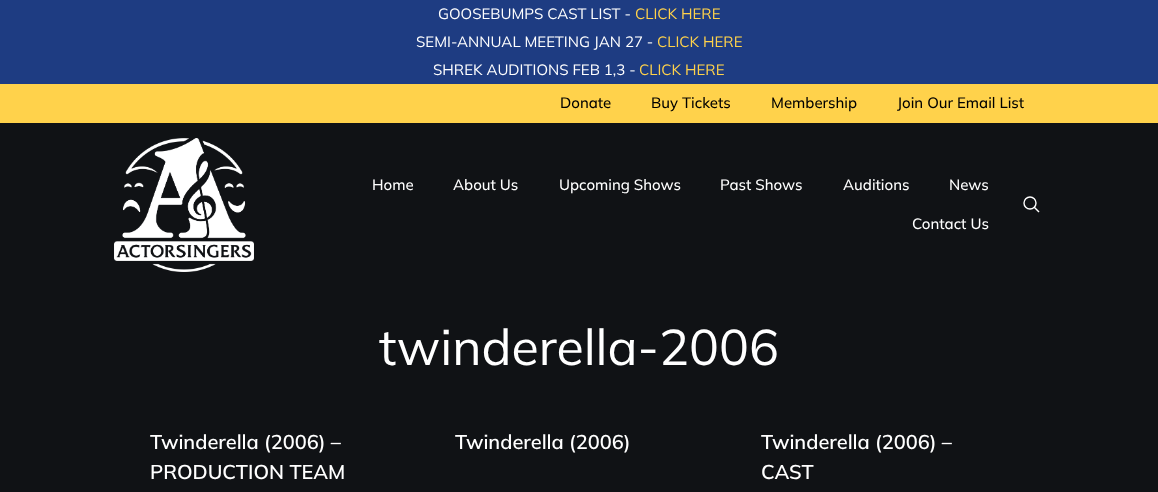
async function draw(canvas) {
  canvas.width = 1158;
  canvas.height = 492;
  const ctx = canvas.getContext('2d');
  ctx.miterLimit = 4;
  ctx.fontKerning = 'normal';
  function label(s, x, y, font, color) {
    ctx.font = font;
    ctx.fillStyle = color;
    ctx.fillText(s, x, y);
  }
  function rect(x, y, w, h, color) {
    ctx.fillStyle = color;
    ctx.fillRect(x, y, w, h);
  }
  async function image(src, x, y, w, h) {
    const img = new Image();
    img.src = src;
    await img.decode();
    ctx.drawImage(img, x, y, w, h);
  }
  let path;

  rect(0, 0, 1158, 492, '#101215');
  rect(0, 0, 1158, 84, '#1e3c82');
  label('GOOSEBUMPS CAST LIST -', 438, 19, '200 15px Mulish', '#fff');
  label('CLICK HERE', 635, 19, '200 15px Mulish', '#ffd24b');
  label('SEMI-ANNUAL MEETING JAN 27 -', 416, 47, '200 15px Mulish', '#fff');
  label('CLICK HERE', 657, 47, '200 15px Mulish', '#ffd24b');
  label('SHREK AUDITIONS FEB 1,3 -', 433, 75, '200 15px Mulish', '#fff');
  label('CLICK HERE', 639, 75, '200 15px Mulish', '#ffd24b');
  rect(0, 84, 1158, 39, '#ffd24b');
  label('Donate', 560, 108, '500 15px Mulish', '#000');
  label('Buy Tickets', 651, 108, '500 15px Mulish', '#000');
  label('Membership', 771, 108, '500 15px Mulish', '#000');
  label('Join Our Email List', 897, 108, '500 15px Mulish', '#000');
  await image('assets/img1.png', 114, 138, 140, 134);
  label('Home', 372, 190, '500 15px Mulish', '#fff');
  label('About Us', 453, 190, '500 15px Mulish', '#fff');
  label('Upcoming Shows', 559, 190, '500 15px Mulish', '#fff');
  label('Past Shows', 720, 190, '500 15px Mulish', '#fff');
  label('Auditions', 843, 190, '500 15px Mulish', '#fff');
  label('News', 949, 190, '500 15px Mulish', '#fff');
  label('Contact Us', 912, 229, '500 15px Mulish', '#fff');
  ctx.beginPath();
  ctx.arc(1030, 203, 6, 0, 2 * Math.PI);
  ctx.strokeStyle = '#fff';
  ctx.lineWidth = 1.4;
  ctx.stroke();
  path = new Path2D('M1034 207L1039 212');
  ctx.stroke(path);
  label('twinderella-2006', 379, 365, '200 50px Mulish', '#fff');
  label('Twinderella (2006) –', 150, 449, '600 20px Mulish', '#fff');
  label('PRODUCTION TEAM', 150, 479, '600 20px Mulish', '#fff');
  label('Twinderella (2006)', 455, 449, '600 20px Mulish', '#fff');
  label('Twinderella (2006) –', 761, 449, '600 20px Mulish', '#fff');
  label('CAST', 761, 479, '600 20px Mulish', '#fff');
}

draw(document.querySelector('canvas'));
